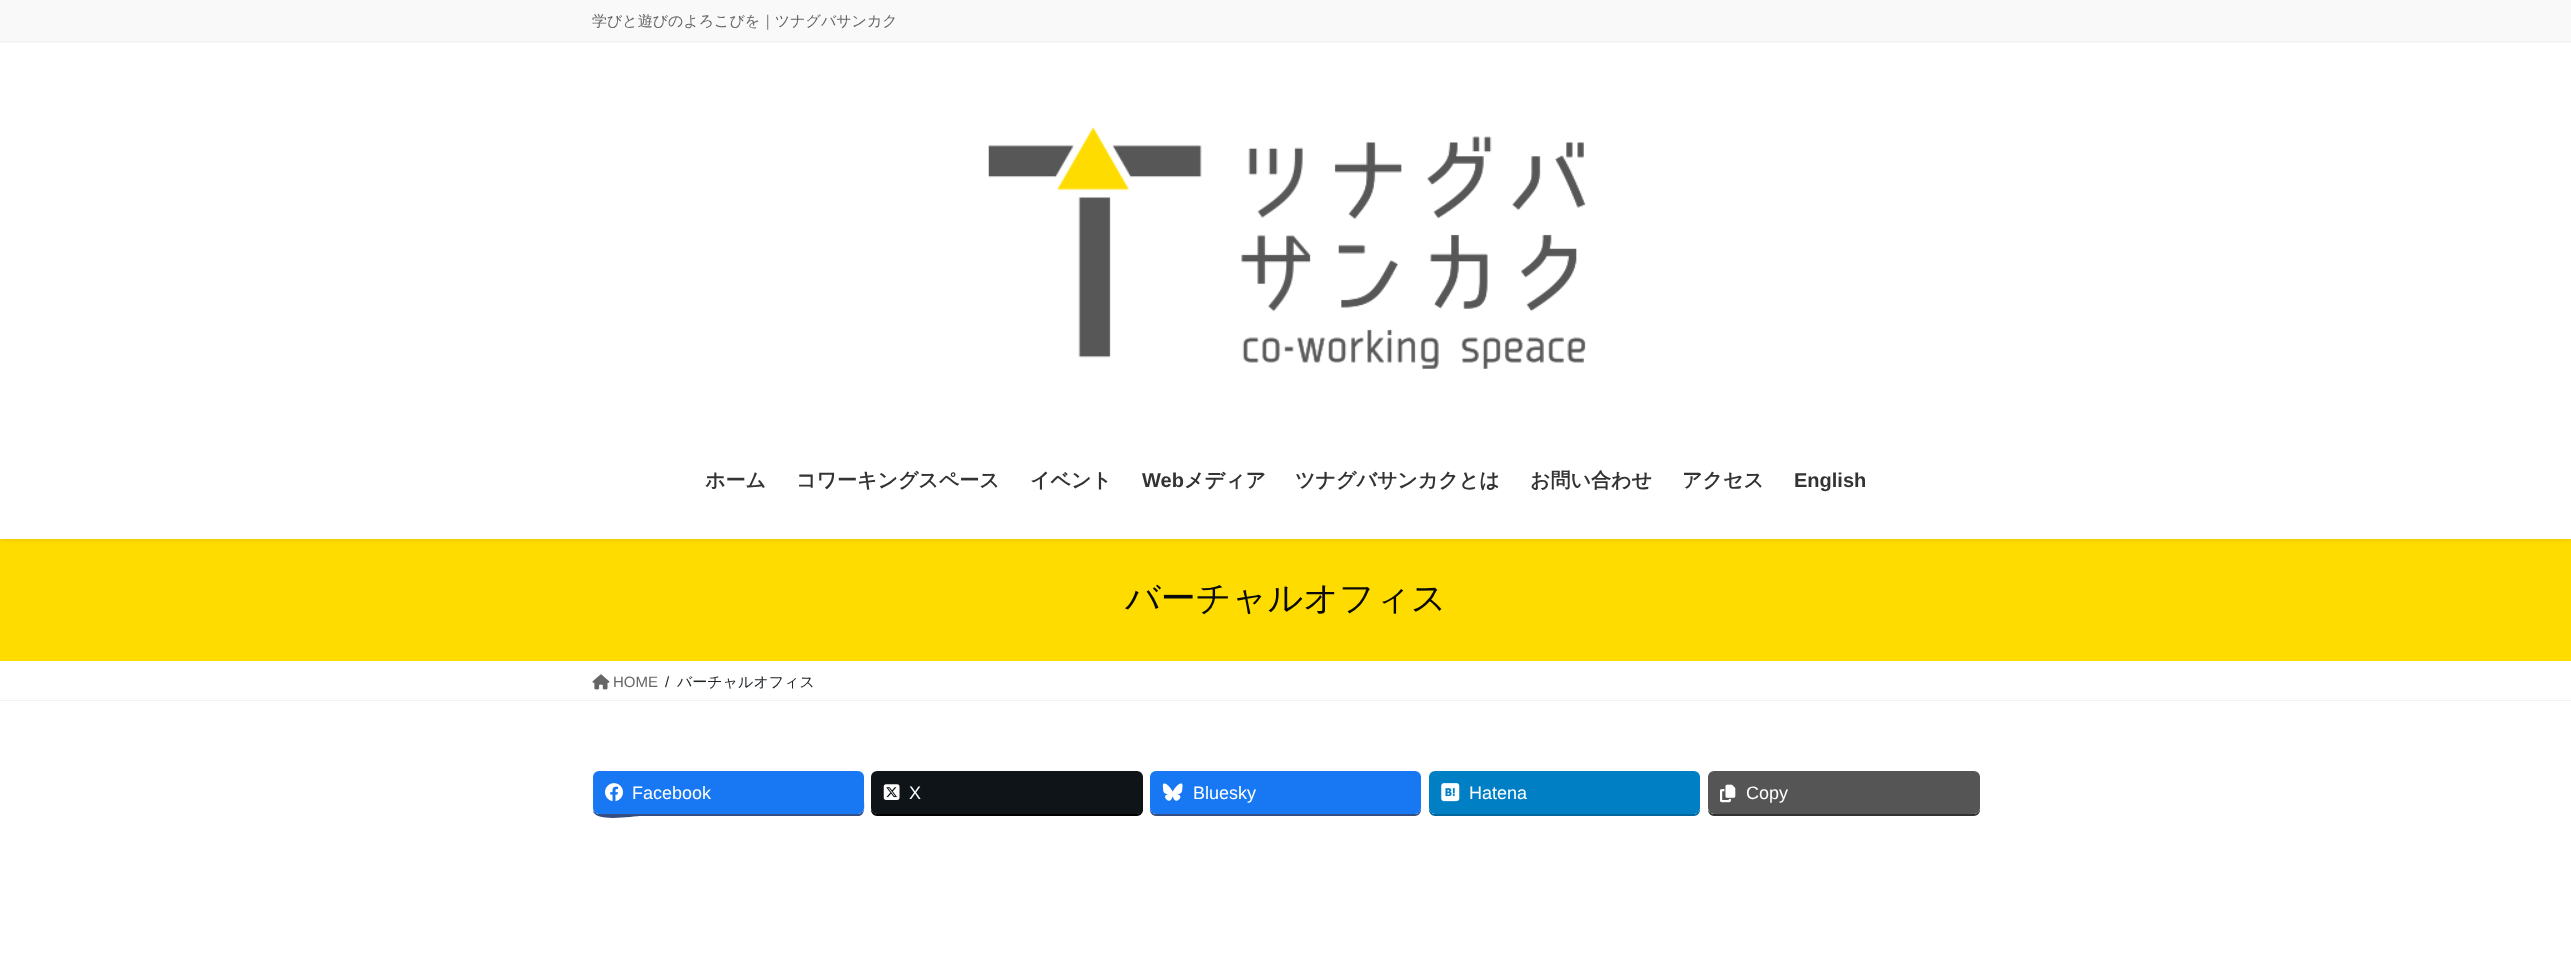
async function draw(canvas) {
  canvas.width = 2571;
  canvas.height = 953;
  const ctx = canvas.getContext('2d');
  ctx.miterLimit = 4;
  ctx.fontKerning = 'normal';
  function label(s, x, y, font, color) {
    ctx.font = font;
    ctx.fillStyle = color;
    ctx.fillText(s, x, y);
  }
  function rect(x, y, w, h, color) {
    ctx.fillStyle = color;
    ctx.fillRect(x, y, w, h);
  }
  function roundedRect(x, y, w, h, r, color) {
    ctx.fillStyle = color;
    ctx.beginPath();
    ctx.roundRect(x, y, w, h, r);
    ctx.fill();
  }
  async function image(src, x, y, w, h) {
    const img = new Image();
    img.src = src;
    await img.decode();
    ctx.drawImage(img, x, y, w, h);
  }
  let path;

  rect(0, 0, 2571, 953, '#fff');
  rect(0, 539, 2571, 122, '#ffdc00');
  ctx.fillStyle = '#0000001a';
  ctx.filter = 'blur(2px)';
  ctx.beginPath();
  ctx.rect(0, -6, 2571, 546);
  ctx.fill();
  ctx.filter = 'none';
  rect(0, 43, 2571, 496, '#fff');
  rect(0, 0, 2571, 43, '#f9f9f9');
  rect(0, 41, 2571, 1, '#efefef');
  label('学びと遊びのよろこびを｜ツナグバサンカク', 592, 26, '500 15px WenQuanYi Zen Hei', '#666');
  await image('assets/img1.png', 988, 127, 598, 242);
  label('ホーム', 705, 487, 'bold 20px WenQuanYi Zen Hei', '#333');
  label('コワーキングスペース', 796, 487, 'bold 20px WenQuanYi Zen Hei', '#333');
  label('イベント', 1030, 487, 'bold 20px WenQuanYi Zen Hei', '#333');
  label('Web', 1142, 487, 'bold 20px Liberation Sans', '#333');
  label('メディア', 1184, 487, 'bold 20px WenQuanYi Zen Hei', '#333');
  label('ツナグバサンカクとは', 1295, 487, 'bold 20px WenQuanYi Zen Hei', '#333');
  label('お問い合わせ', 1530, 487, 'bold 20px WenQuanYi Zen Hei', '#333');
  label('アクセス', 1682, 487, 'bold 20px WenQuanYi Zen Hei', '#333');
  label('English', 1794, 487, 'bold 20px Liberation Sans', '#333');
  label('バーチャルオフィス', 1125, 610, '500 35px WenQuanYi Zen Hei', '#0a0a0a');
  rect(0, 700, 2571, 1, '#f2f2f2');
  await image('assets/img2.png', 592, 674, 18, 16);
  label('HOME', 613, 687, '15px Liberation Sans', '#666');
  label('/', 665, 687, '15px Liberation Sans', '#212529');
  label('バーチャルオフィス', 677, 687, '500 15px WenQuanYi Zen Hei', '#212529');
  ctx.fillStyle = '#344e84';
  path = new Path2D('M593 810C593 823 633 816 642 816H858C866 816 864 805 864 800V778V808C864 811 861 814 858 814H599C596 814 594 812 593 810Z');
  ctx.fill(path);
  roundedRect(593, 771, 271, 43, 6, '#1877f2');
  await image('assets/img3.png', 605, 783, 18, 19);
  label('Facebook', 632, 799, '18px Liberation Sans', '#fff');
  ctx.fillStyle = '#000';
  path = new Path2D('M871 778V810C871 813 874 816 877 816H1137C1140 816 1143 813 1143 810V780L1142 778V808C1142 811 1140 814 1136 814H878C874 814 871 811 871 808Z');
  ctx.fill(path);
  roundedRect(871, 771, 272, 43, 6, '#0f1419');
  await image('assets/img4.png', 883, 784, 17, 16);
  label('X', 909, 799, '18px Liberation Sans', '#fff');
  ctx.fillStyle = '#344e84';
  path = new Path2D('M1150 808V810C1150 813 1153 816 1156 816H1415C1418 816 1421 813 1421 810V809C1420 812 1418 814 1415 814H1156C1153 814 1150 811 1150 808Z');
  ctx.fill(path);
  roundedRect(1150, 771, 271, 43, 6, '#1877f2');
  await image('assets/img5.png', 1162, 783, 21, 18);
  label('Bluesky', 1193, 799, '18px Liberation Sans', '#fff');
  ctx.fillStyle = '#00679f';
  path = new Path2D('M1429 809V810C1429 813 1432 816 1435 816H1694C1697 816 1700 813 1700 810V808C1700 811 1697 814 1694 814H1435C1432 814 1430 812 1429 809Z');
  ctx.fill(path);
  roundedRect(1429, 771, 271, 43, 6, '#007fc5');
  await image('assets/img6.png', 1441, 783, 19, 19);
  label('Hatena', 1469, 799, '18px Liberation Sans', '#fff');
  ctx.fillStyle = '#333';
  path = new Path2D('M1708 810C1708 813 1711 816 1714 816H1974C1977 816 1980 813 1980 810V808C1980 811 1977 814 1974 814H1714C1711 814 1709 812 1708 810Z');
  ctx.fill(path);
  roundedRect(1708, 771, 272, 43, 6, '#555');
  await image('assets/img7.png', 1720, 784, 16, 19);
  label('Copy', 1746, 799, '18px Liberation Sans', '#fff');
}

draw(document.querySelector('canvas'));
